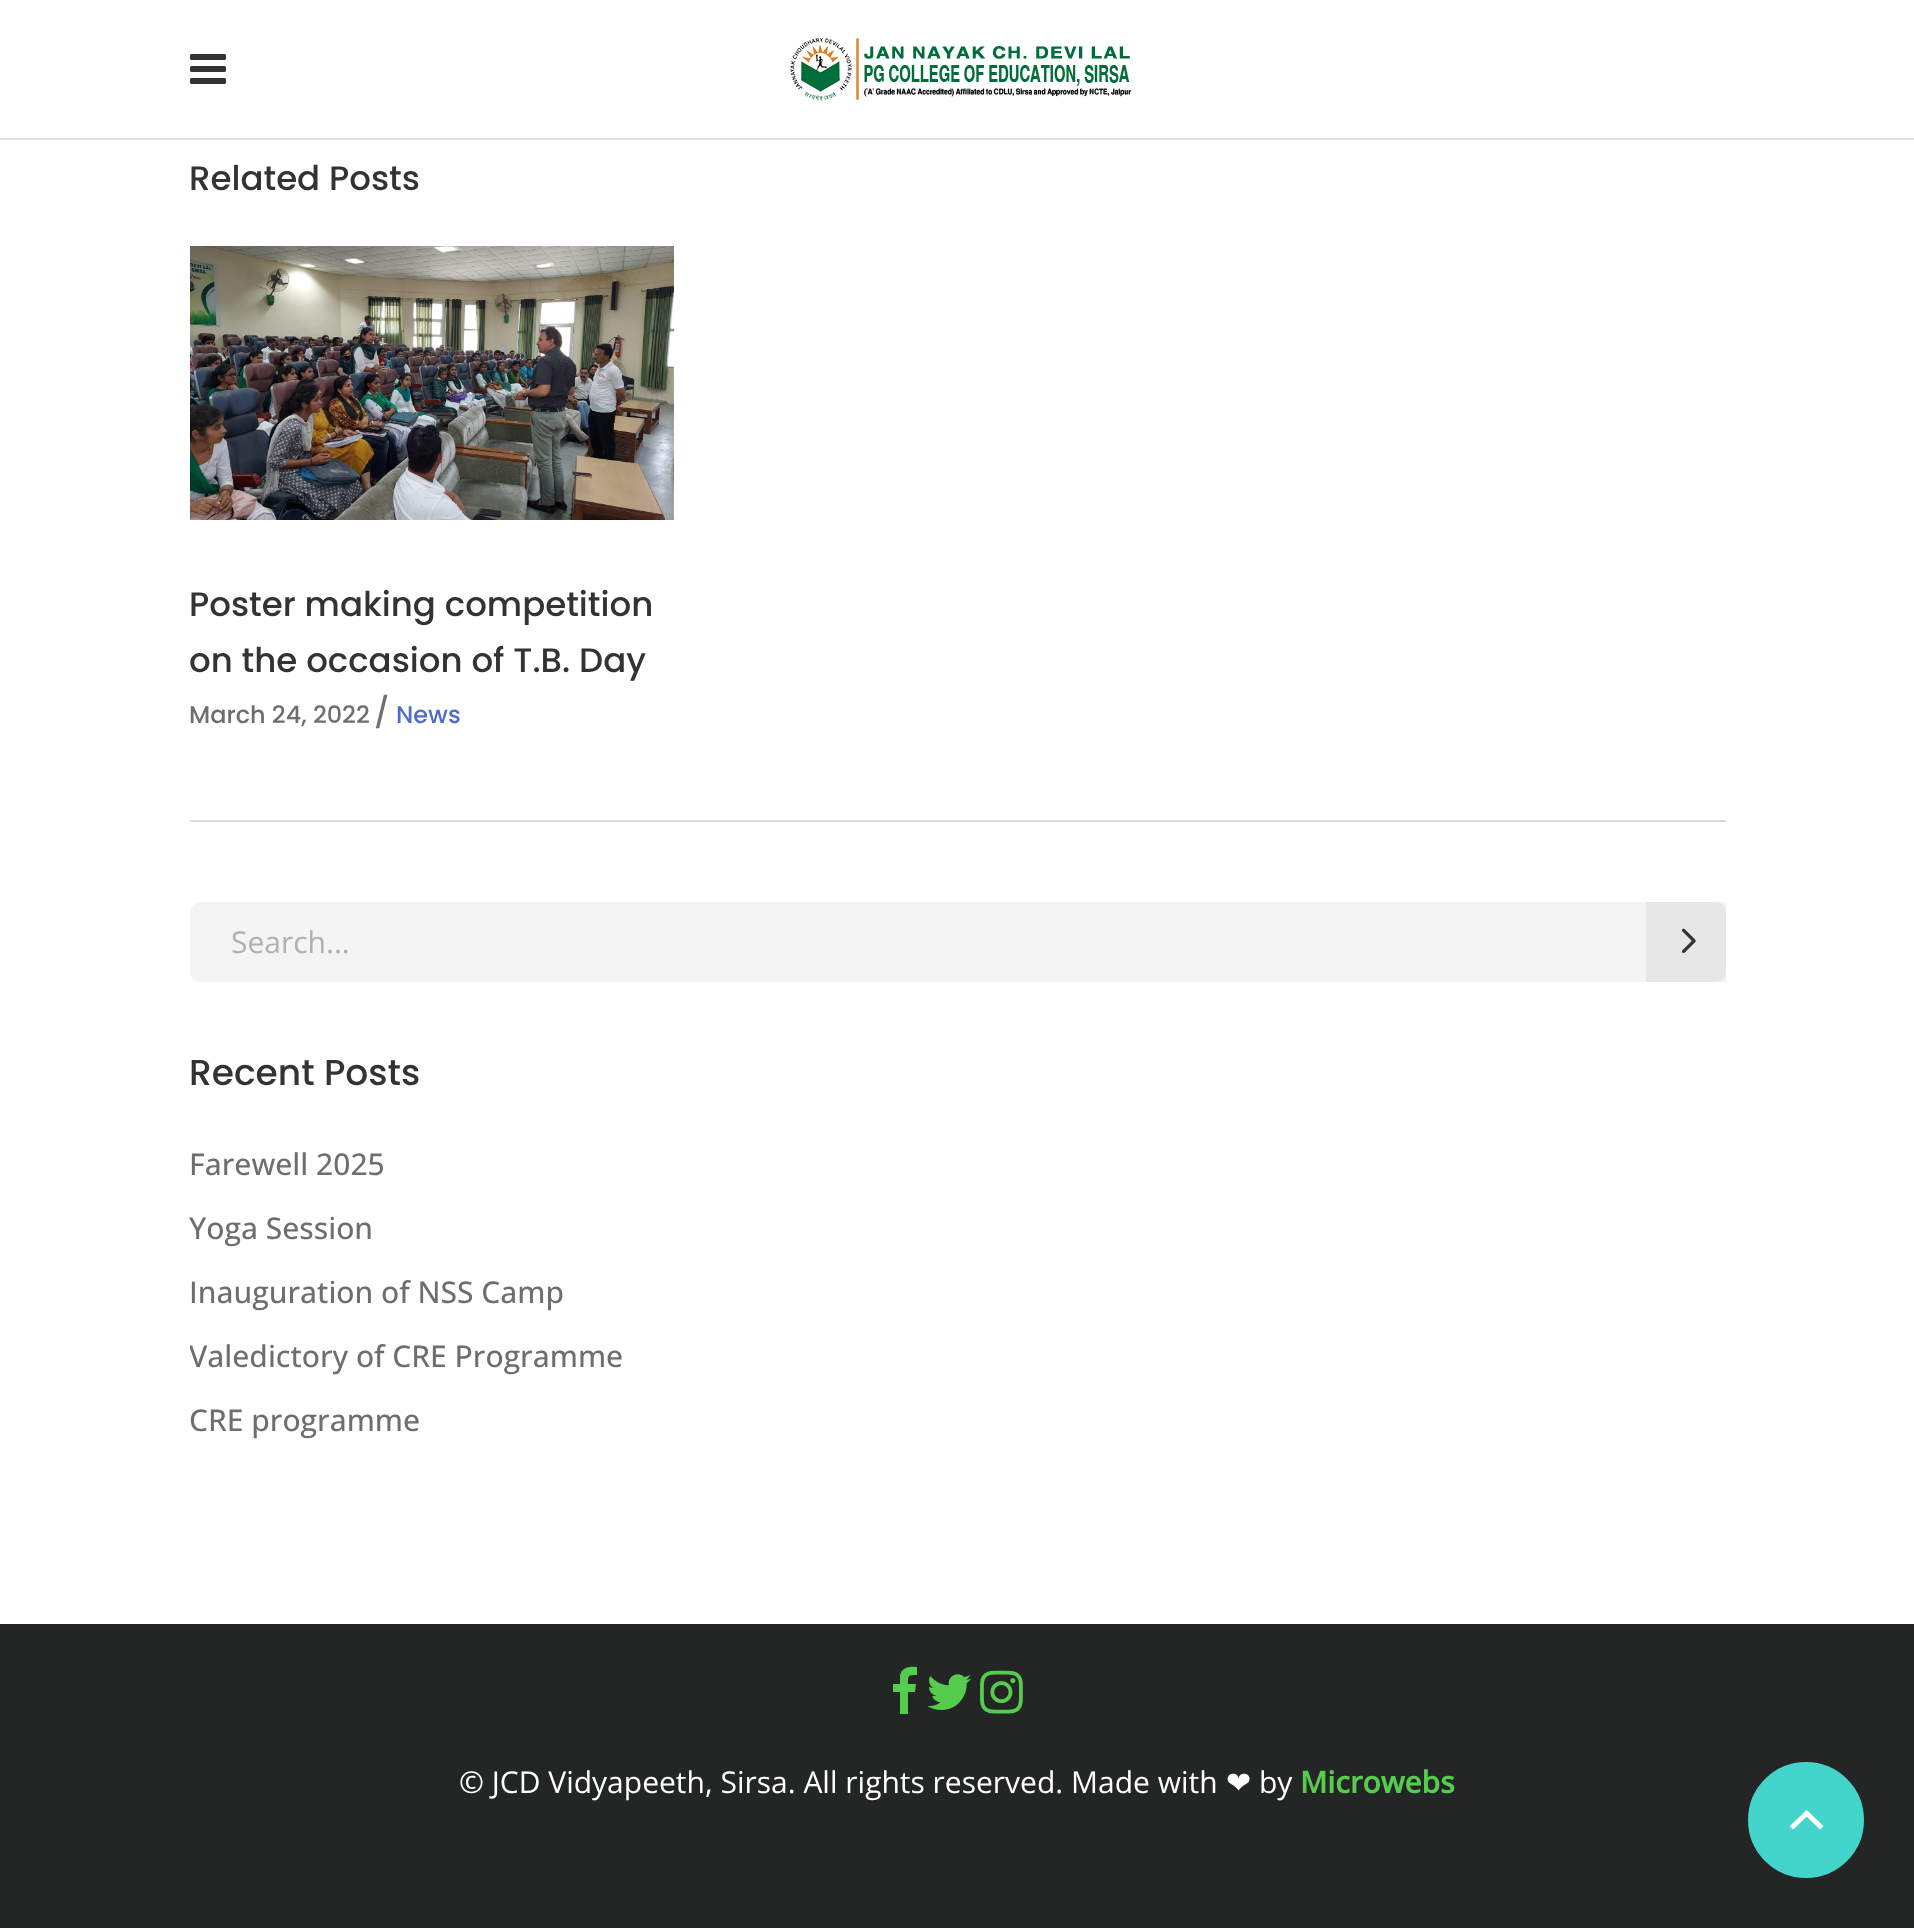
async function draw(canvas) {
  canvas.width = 1914;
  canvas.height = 1928;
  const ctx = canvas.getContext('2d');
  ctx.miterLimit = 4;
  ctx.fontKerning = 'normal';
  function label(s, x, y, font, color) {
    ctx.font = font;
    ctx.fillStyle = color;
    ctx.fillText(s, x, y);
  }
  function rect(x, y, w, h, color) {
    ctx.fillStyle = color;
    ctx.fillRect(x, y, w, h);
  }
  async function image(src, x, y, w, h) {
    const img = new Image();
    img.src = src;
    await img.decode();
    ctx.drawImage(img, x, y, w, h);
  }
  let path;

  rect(0, 0, 1914, 1928, '#fff');
  rect(0, 138, 1914, 2, '#e1e1e1');
  await image('assets/img1.png', 190, 54, 36, 30);
  await image('assets/img2.png', 790, 38, 342, 63);
  rect(190, 820, 1536, 2, '#dadada');
  label('Related Posts', 189, 190, '500 34px Poppins', '#333');
  await image('assets/img3.png', 190, 246, 484, 274);
  label('Poster making competition', 189, 616, '500 34px Poppins', '#333');
  label('on the occasion of T.B. Day', 189, 672, '500 34px Poppins', '#333');
  label('March 24, 2022', 189, 723, '500 24px Poppins', '#6e6e6e');
  label('/', 374, 723, '500 30px Poppins', '#6e6e6e');
  label('News', 396, 723, '500 24px Poppins', '#4e6dcc');
  ctx.fillStyle = '#f4f4f4';
  ctx.beginPath();
  ctx.roundRect(190, 902, 1536, 80, [10, 0, 0, 10]);
  ctx.fill();
  label('Search...', 231, 953, '30px Open Sans', '#afafaf');
  ctx.fillStyle = '#e7e7e7';
  ctx.beginPath();
  ctx.roundRect(1646, 902, 80, 80, [0, 10, 10, 0]);
  ctx.fill();
  await image('assets/img4.png', 1682, 928, 14, 25);
  label('Recent Posts', 189, 1085, '500 36px Poppins', '#333');
  label('Farewell 2025', 189, 1175, '500 30px Open Sans', '#6e6e6e');
  label('Yoga Session', 189, 1239, '500 30px Open Sans', '#6e6e6e');
  label('Inauguration of NSS Camp', 189, 1303, '500 30px Open Sans', '#6e6e6e');
  ctx.save();
  ctx.beginPath();
  ctx.rect(190, 1336, 1536, 64);
  ctx.clip();
  label('Valedictory of CRE Programme', 189, 1367, '500 30px Open Sans', '#6e6e6e');
  ctx.restore();
  label('CRE programme', 189, 1431, '500 30px Open Sans', '#6e6e6e');
  rect(0, 1624, 1914, 304, '#242626');
  ctx.fillStyle = '#55cc4d';
  path = new Path2D('M917 1667V1675C908 1675 908 1675 908 1684H916L915 1692H908V1714H900V1692H893V1684H900V1676C901 1667 910 1666 917 1667Z');
  ctx.fill(path);
  await image('assets/img5.png', 927, 1674, 44, 36);
  await image('assets/img6.png', 980, 1670, 43, 44);
  label('© JCD Vidyapeeth, Sirsa. All rights reserved. Made with', 459, 1793, '30px Open Sans', '#fff');
  label('❤', 1226, 1793, '30px DejaVu Sans', '#fff');
  label('by', 1259, 1793, '30px Open Sans', '#fff');
  label('Microwebs', 1300, 1793, 'bold 30px Open Sans', '#55cc4d');
  ctx.fillStyle = '#43d5cb';
  ctx.beginPath();
  ctx.arc(1806, 1820, 57, 0, 2 * Math.PI);
  ctx.fill();
  ctx.strokeStyle = '#43d5cb';
  ctx.lineWidth = 2;
  ctx.stroke();
  await image('assets/img7.png', 1790, 1810, 34, 20);
}

draw(document.querySelector('canvas'));
